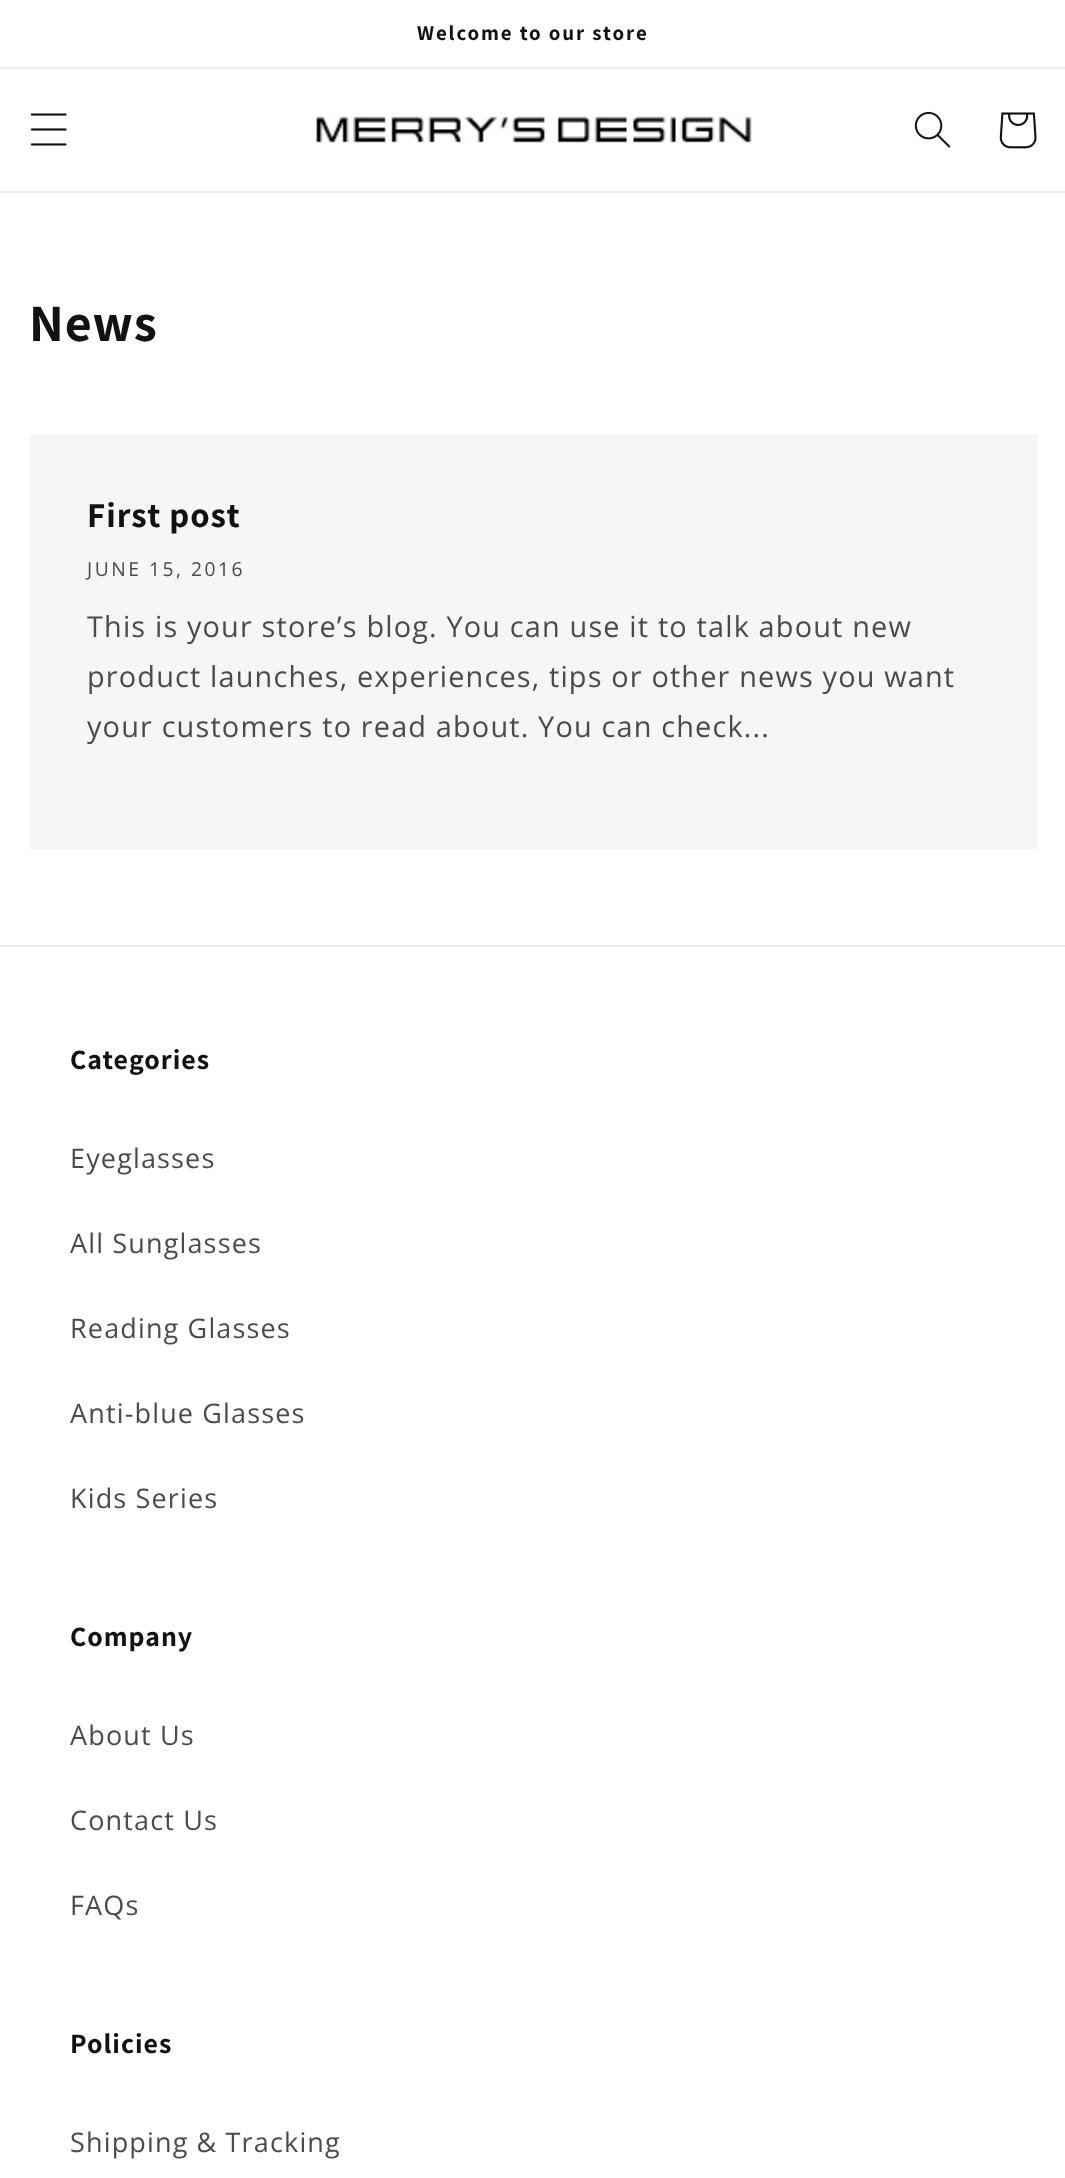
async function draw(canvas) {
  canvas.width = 1065;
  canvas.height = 2178;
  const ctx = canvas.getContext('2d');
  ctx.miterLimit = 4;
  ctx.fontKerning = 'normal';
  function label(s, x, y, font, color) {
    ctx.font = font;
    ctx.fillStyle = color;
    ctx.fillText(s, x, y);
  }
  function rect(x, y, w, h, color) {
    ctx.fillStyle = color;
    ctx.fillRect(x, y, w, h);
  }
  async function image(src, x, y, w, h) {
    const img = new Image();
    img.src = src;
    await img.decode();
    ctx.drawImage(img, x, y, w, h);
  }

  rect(0, 0, 1065, 2178, '#fff');
  rect(0, 67, 1065, 2, '#ececec');
  ctx.letterSpacing = '1.9px';
  label('Welcome to our store', 417, 40, 'bold 21px Assistant', '#121212');
  rect(0, 191, 1065, 2, '#ececec');
  await image('assets/img1.png', 30, 113, 37, 33);
  await image('assets/img2.png', 315, 116, 437, 27);
  await image('assets/img3.png', 914, 111, 37, 37);
  await image('assets/img4.png', 999, 112, 38, 37);
  ctx.letterSpacing = '1px';
  label('News', 29, 341, 'bold 52.5px Assistant', '#121212');
  rect(30, 434, 1008, 415, '#f6f6f6');
  label('First post', 87, 527, 'bold 35px Assistant', '#121212');
  ctx.letterSpacing = '2.5px';
  label('JUNE 15, 2016', 87, 576, '19.25px Open Sans', '#4b4b4b');
  ctx.letterSpacing = '1.15px';
  label('This is your store’s blog. You can use it to talk about new', 87, 637, '28.9px Open Sans', '#4b4b4b');
  label('product launches, experiences, tips or other news you want', 87, 687, '28.9px Open Sans', '#4b4b4b');
  label('your customers to read about. You can check...', 87, 737, '28.9px Open Sans', '#4b4b4b');
  rect(0, 945, 1065, 2, '#ececec');
  ctx.letterSpacing = '1px';
  label('Categories', 70, 1069, 'bold 28px Assistant', '#121212');
  ctx.letterSpacing = '1.15px';
  label('Eyeglasses', 70, 1168, '27px Open Sans', '#4b4b4b');
  label('All Sunglasses', 70, 1253, '27px Open Sans', '#4b4b4b');
  label('Reading Glasses', 70, 1338, '27px Open Sans', '#4b4b4b');
  label('Anti-blue Glasses', 70, 1423, '27px Open Sans', '#4b4b4b');
  label('Kids Series', 70, 1508, '27px Open Sans', '#4b4b4b');
  ctx.letterSpacing = '1px';
  label('Company', 70, 1646, 'bold 28px Assistant', '#121212');
  ctx.letterSpacing = '1.15px';
  label('About Us', 70, 1745, '27px Open Sans', '#4b4b4b');
  label('Contact Us', 70, 1830, '27px Open Sans', '#4b4b4b');
  label('FAQs', 70, 1915, '27px Open Sans', '#4b4b4b');
  ctx.letterSpacing = '1px';
  label('Policies', 70, 2053, 'bold 28px Assistant', '#121212');
  ctx.letterSpacing = '1.15px';
  label('Shipping & Tracking', 70, 2152, '27px Open Sans', '#4b4b4b');
}

draw(document.querySelector('canvas'));
